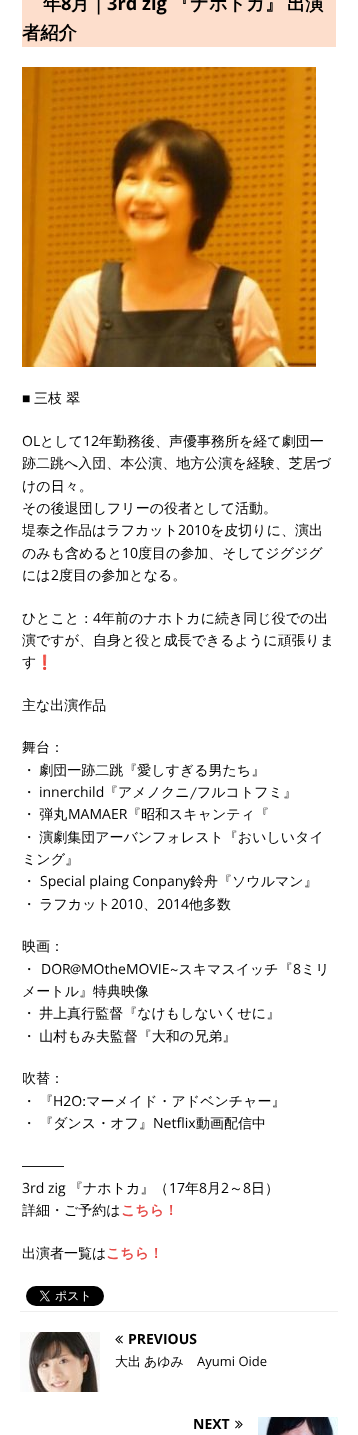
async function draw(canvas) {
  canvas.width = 358;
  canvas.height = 1435;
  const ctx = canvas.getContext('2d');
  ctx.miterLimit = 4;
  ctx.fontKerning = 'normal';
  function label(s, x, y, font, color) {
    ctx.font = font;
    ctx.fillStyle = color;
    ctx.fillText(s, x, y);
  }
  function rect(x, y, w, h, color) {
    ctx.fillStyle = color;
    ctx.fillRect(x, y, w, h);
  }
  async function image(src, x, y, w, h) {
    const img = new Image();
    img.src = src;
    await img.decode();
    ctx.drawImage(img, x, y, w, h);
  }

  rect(0, 0, 358, 1435, '#fff');
  rect(20, 1311, 318, 1, '#eee');
  rect(22, 0, 314, 47, '#fddecc');
  label('年', 43, 10, 'bold 18.25px WenQuanYi Zen Hei', '#000');
  label('8', 61, 10, 'bold 18.25px Open Sans', '#000');
  label('月｜', 71, 10, 'bold 18.25px WenQuanYi Zen Hei', '#000');
  label('3rd zig', 107, 10, 'bold 18.25px Open Sans', '#000');
  label('『ナホトカ』', 172, 10, 'bold 18.25px WenQuanYi Zen Hei', '#000');
  label('出演', 287, 10, 'bold 18.25px WenQuanYi Zen Hei', '#000');
  label('者紹介', 22, 39, 'bold 18.25px WenQuanYi Zen Hei', '#000');
  await image('assets/img1.png', 22, 67, 294, 300);
  label('■', 22, 403, '14px Liberation Sans', '#000');
  label('三枝 翠', 34, 403, '500 14px WenQuanYi Zen Hei', '#000');
  label('OL', 22, 446, '14px Open Sans', '#000');
  label('として', 40, 446, '500 14px WenQuanYi Zen Hei', '#000');
  label('12', 83, 446, '14px Open Sans', '#000');
  label('年勤務後、声優事務所を経て劇団一', 99, 446, '500 14px WenQuanYi Zen Hei', '#000');
  label('跡二跳へ入団、本公演、地方公演を経験、芝居づ', 22, 468, '500 14px WenQuanYi Zen Hei', '#000');
  label('けの日々。', 22, 491, '500 14px WenQuanYi Zen Hei', '#000');
  label('その後退団しフリーの役者として活動。', 22, 513, '500 14px WenQuanYi Zen Hei', '#000');
  label('堤泰之作品はラフカット', 22, 535, '500 14px WenQuanYi Zen Hei', '#000');
  label('2010', 178, 535, '14px Open Sans', '#000');
  label('を皮切りに、演出', 210, 535, '500 14px WenQuanYi Zen Hei', '#000');
  label('のみも含めると', 22, 558, '500 14px WenQuanYi Zen Hei', '#000');
  label('10', 122, 558, '14px Open Sans', '#000');
  label('度目の参加、そしてジグジグ', 138, 558, '500 14px WenQuanYi Zen Hei', '#000');
  label('には', 22, 580, '500 14px WenQuanYi Zen Hei', '#000');
  label('2', 51, 580, '14px Open Sans', '#000');
  label('度目の参加となる。', 59, 580, '500 14px WenQuanYi Zen Hei', '#000');
  label('ひとこと：', 22, 623, '500 14px WenQuanYi Zen Hei', '#000');
  label('4', 93, 623, '14px Open Sans', '#000');
  label('年前のナホトカに続き同じ役での出', 101, 623, '500 14px WenQuanYi Zen Hei', '#000');
  label('演ですが、自身と役と成長できるように頑張りま', 22, 645, '500 14px WenQuanYi Zen Hei', '#000');
  label('す', 22, 667, '500 14px WenQuanYi Zen Hei', '#000');
  label('❗', 36, 667, '14px Noto Color Emoji', '#000');
  label('主な出演作品', 22, 710, '500 14px WenQuanYi Zen Hei', '#000');
  label('舞台：', 22, 752, '500 14px WenQuanYi Zen Hei', '#000');
  ctx.wordSpacing = '-1px';
  label('・ 劇団一跡二跳『愛しすぎる男たち』', 22, 775, '500 14px WenQuanYi Zen Hei', '#000');
  ctx.wordSpacing = '0px';
  label('・', 22, 797, '500 14px WenQuanYi Zen Hei', '#000');
  label('innerchild', 39, 797, '14px Open Sans', '#000');
  label('『アメノクニ/フルコトフミ』', 104, 797, '500 14px WenQuanYi Zen Hei', '#000');
  ctx.wordSpacing = '-1px';
  label('・ 弾丸', 22, 819, '500 14px WenQuanYi Zen Hei', '#000');
  ctx.wordSpacing = '0px';
  label('MAMAER', 68, 819, '14px Open Sans', '#000');
  label('『昭和スキャンティ『', 127, 819, '500 14px WenQuanYi Zen Hei', '#000');
  ctx.wordSpacing = '-1px';
  label('・ 演劇集団アーバンフォレスト『おいしいタイ', 22, 842, '500 14px WenQuanYi Zen Hei', '#000');
  ctx.wordSpacing = '0px';
  label('ミング』', 22, 864, '500 14px WenQuanYi Zen Hei', '#000');
  label('・', 22, 886, '500 14px WenQuanYi Zen Hei', '#000');
  label('Special plaing Conpany', 40, 886, '14px Open Sans', '#000');
  label('鈴舟『ソウルマン』', 190, 886, '500 14px WenQuanYi Zen Hei', '#000');
  ctx.wordSpacing = '-1px';
  label('・ ラフカット', 22, 909, '500 14px WenQuanYi Zen Hei', '#000');
  ctx.wordSpacing = '0px';
  label('2010', 111, 909, '14px Open Sans', '#000');
  label('、', 143, 909, '500 14px WenQuanYi Zen Hei', '#000');
  label('2014', 157, 909, '14px Open Sans', '#000');
  label('他多数', 189, 909, '500 14px WenQuanYi Zen Hei', '#000');
  label('映画：', 22, 951, '500 14px WenQuanYi Zen Hei', '#000');
  label('・', 22, 974, '500 14px WenQuanYi Zen Hei', '#000');
  label('DOR', 41, 974, '14px Open Sans', '#000');
  label('@', 70, 974, '500 14px WenQuanYi Zen Hei', '#000');
  label('MOtheMOVIE', 81, 974, '14px Open Sans', '#000');
  label('~スキマスイッチ『', 170, 974, '500 14px WenQuanYi Zen Hei', '#000');
  label('8', 293, 974, '14px Open Sans', '#000');
  label('ミリ', 301, 974, '500 14px WenQuanYi Zen Hei', '#000');
  label('メートル』特典映像', 22, 996, '500 14px WenQuanYi Zen Hei', '#000');
  ctx.wordSpacing = '-1px';
  label('・ 井上真行監督『なけもしないくせに』', 22, 1018, '500 14px WenQuanYi Zen Hei', '#000');
  label('・ 山村もみ夫監督『大和の兄弟』', 22, 1041, '500 14px WenQuanYi Zen Hei', '#000');
  ctx.wordSpacing = '0px';
  label('吹替：', 22, 1083, '500 14px WenQuanYi Zen Hei', '#000');
  ctx.wordSpacing = '-1px';
  label('・ 『', 22, 1106, '500 14px WenQuanYi Zen Hei', '#000');
  ctx.wordSpacing = '0px';
  label('H2O', 53, 1106, '14px Open Sans', '#000');
  label(':マーメイド・アドベンチャー』', 82, 1106, '500 14px WenQuanYi Zen Hei', '#000');
  ctx.wordSpacing = '-1px';
  label('・ 『ダンス・オフ』', 22, 1128, '500 14px WenQuanYi Zen Hei', '#000');
  ctx.wordSpacing = '0px';
  label('Netflix', 153, 1128, '14px Open Sans', '#000');
  label('動画配信中', 196, 1128, '500 14px WenQuanYi Zen Hei', '#000');
  label('―――', 22, 1170, '14px Liberation Sans', '#000');
  label('3rd zig', 22, 1193, '14px Open Sans', '#000');
  label('『ナホトカ』（', 69, 1193, '500 14px WenQuanYi Zen Hei', '#000');
  label('17', 169, 1193, '14px Open Sans', '#000');
  label('年', 185, 1193, '500 14px WenQuanYi Zen Hei', '#000');
  label('8', 199, 1193, '14px Open Sans', '#000');
  label('月', 207, 1193, '500 14px WenQuanYi Zen Hei', '#000');
  label('2', 221, 1193, '14px Open Sans', '#000');
  label('～', 229, 1193, '500 14px WenQuanYi Zen Hei', '#000');
  label('8', 243, 1193, '14px Open Sans', '#000');
  label('日）', 251, 1193, '500 14px WenQuanYi Zen Hei', '#000');
  label('詳細・ご予約は', 22, 1215, '500 14px WenQuanYi Zen Hei', '#000');
  label('こちら！', 121, 1215, 'bold 14px WenQuanYi Zen Hei', '#e64946');
  label('出演者一覧は', 22, 1258, '500 14px WenQuanYi Zen Hei', '#000');
  label('こちら！', 106, 1258, 'bold 14px WenQuanYi Zen Hei', '#e64946');
  await image('assets/img2.png', 26, 1286, 78, 20);
  await image('assets/img3.png', 20, 1332, 80, 60);
  await image('assets/img4.png', 115, 1335, 8, 9);
  label('PREVIOUS', 128, 1344, 'bold 14px Open Sans', '#000');
  ctx.wordSpacing = '-1px';
  label('大出 あゆみ', 115, 1366, '500 13px WenQuanYi Zen Hei', '#000');
  ctx.wordSpacing = '0px';
  label('Ayumi Oide', 197, 1366, '13px Open Sans', '#000');
  label('NEXT', 193, 1429, 'bold 14px Open Sans', '#000');
  await image('assets/img5.png', 235, 1420, 8, 9);
  await image('assets/img6.png', 258, 1417, 80, 18);
}

draw(document.querySelector('canvas'));
